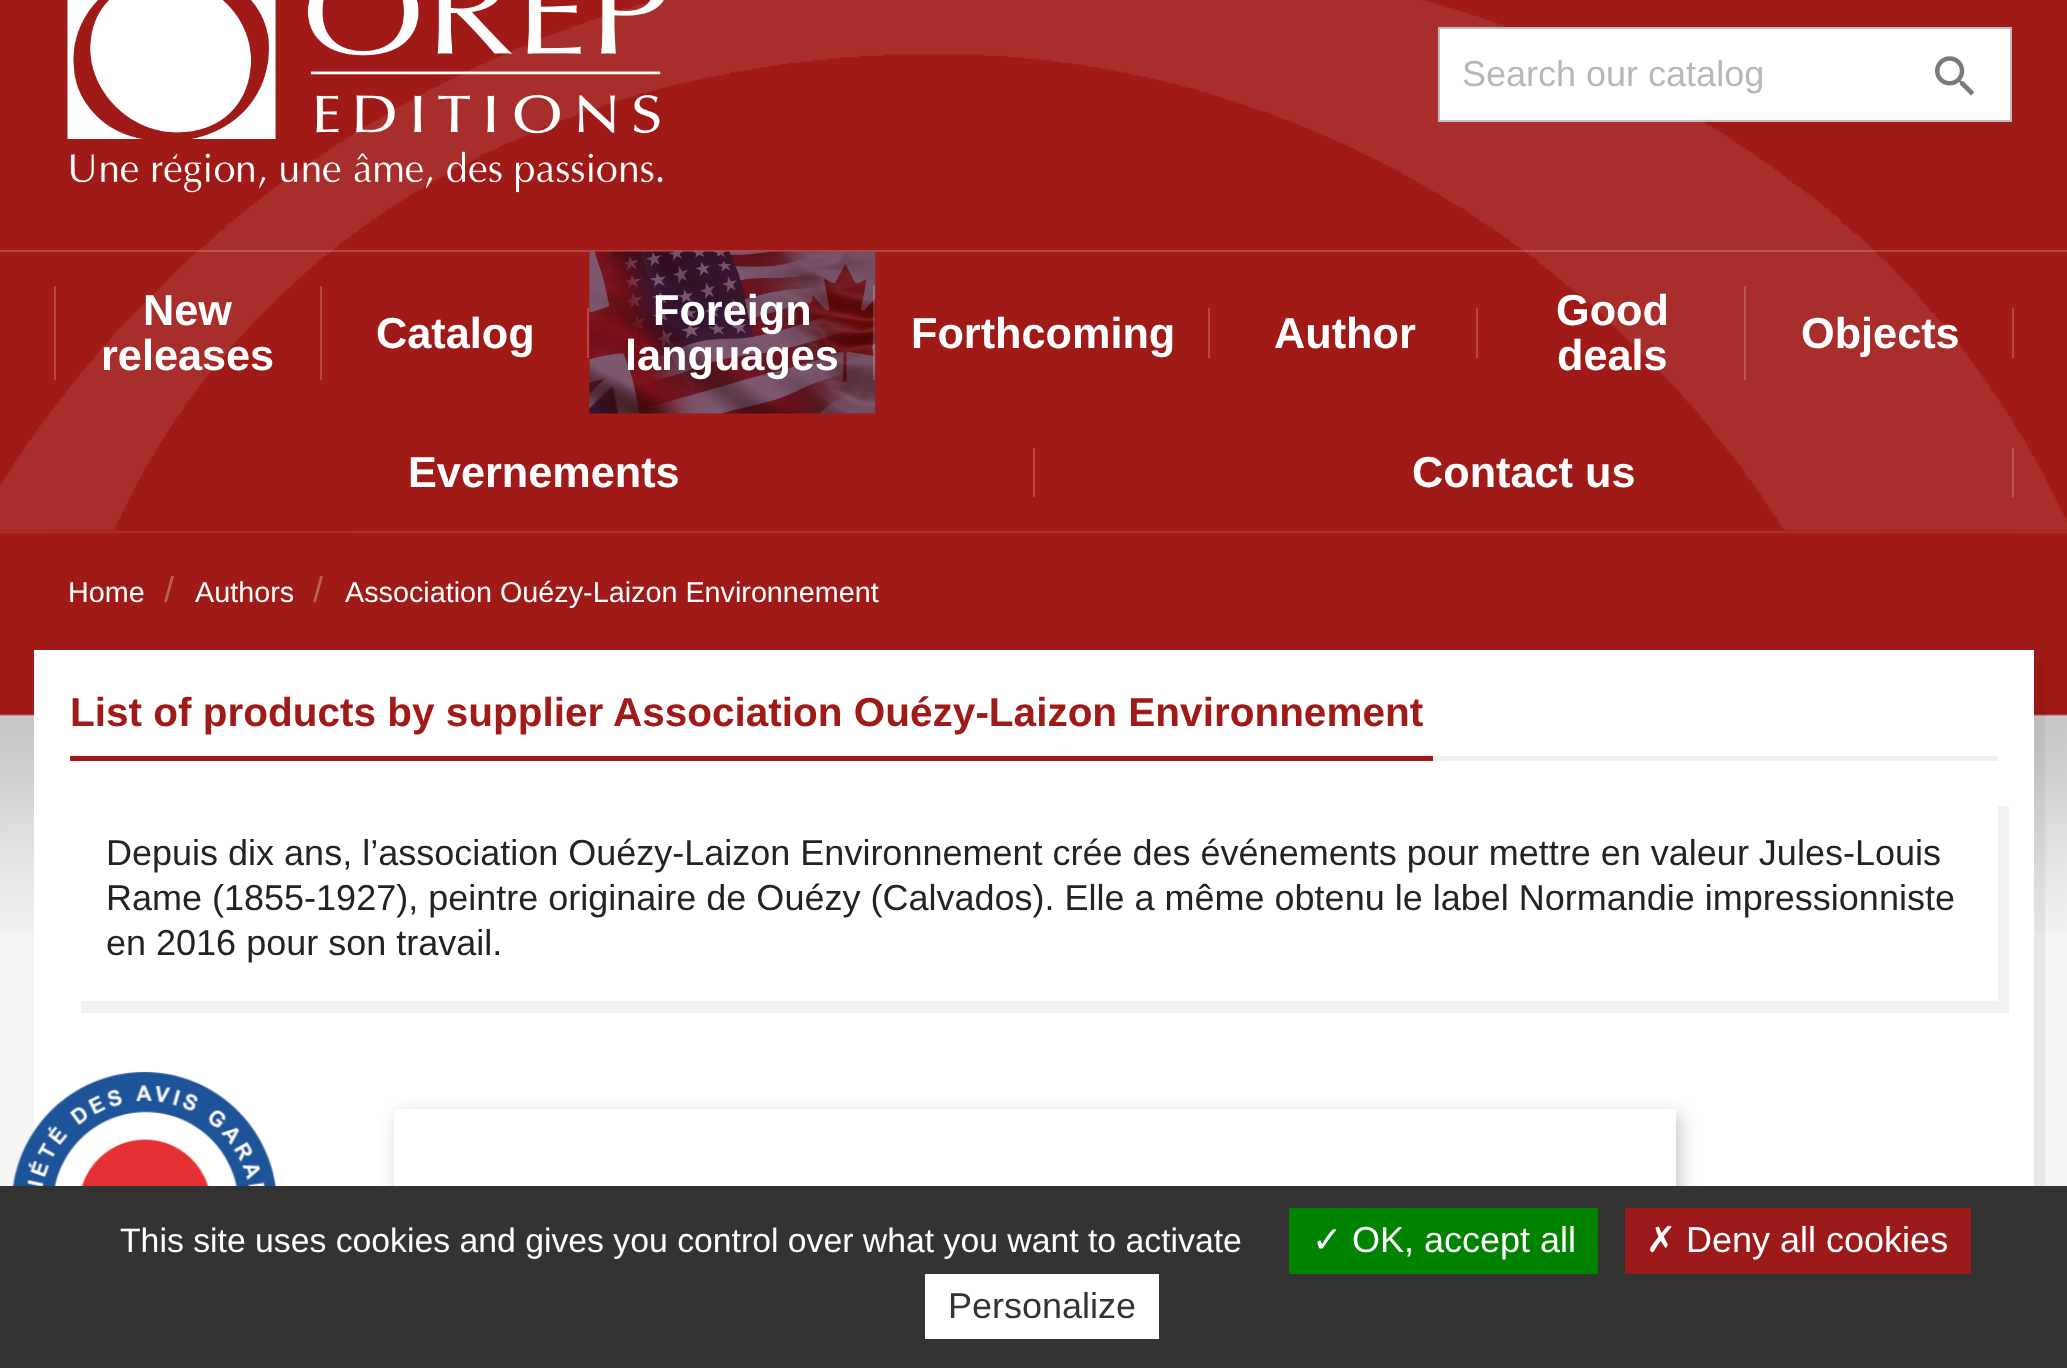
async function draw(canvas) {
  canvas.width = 2067;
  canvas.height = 1368;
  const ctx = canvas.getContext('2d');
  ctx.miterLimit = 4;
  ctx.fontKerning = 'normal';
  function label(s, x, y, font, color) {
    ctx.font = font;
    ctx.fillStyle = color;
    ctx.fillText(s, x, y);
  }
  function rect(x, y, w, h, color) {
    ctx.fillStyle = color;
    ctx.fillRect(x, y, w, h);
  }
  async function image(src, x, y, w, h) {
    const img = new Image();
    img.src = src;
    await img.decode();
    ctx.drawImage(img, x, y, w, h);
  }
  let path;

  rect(0, 0, 2067, 1368, '#fff');
  await image('assets/img1.png', 0, 531, 2067, 655);
  rect(0, 0, 2067, 531, '#a01a17');
  await image('assets/img2.png', 0, 0, 2067, 531);
  await image('assets/img3.png', 67, 0, 597, 193);
  ctx.fillStyle = '#fff';
  ctx.beginPath();
  ctx.rect(1439, 28, 572, 93);
  ctx.fill();
  ctx.strokeStyle = '#bfbfbf';
  ctx.lineWidth = 2;
  ctx.stroke();
  label('Search our catalog', 1462, 86, '36px Liberation Sans', '#b7b7b7');
  await image('assets/img4.png', 1935, 56, 40, 40);
  rect(0, 250, 2067, 2, '#ffffff33');
  rect(54, 286, 2, 94, '#b34845');
  label('New', 143, 325, 'bold 43.25px Liberation Sans', '#fff');
  label('releases', 101, 370, 'bold 43.25px Liberation Sans', '#fff');
  rect(320, 286, 2, 94, '#b34845');
  label('Catalog', 376, 348, 'bold 43.25px Liberation Sans', '#fff');
  rect(587, 308, 2, 50, '#b34845');
  await image('assets/img5.png', 589, 251, 287, 163);
  label('Foreign', 653, 325, 'bold 43.25px Liberation Sans', '#fff');
  label('languages', 625, 370, 'bold 43.25px Liberation Sans', '#fff');
  rect(873, 286, 2, 94, '#ffffff33');
  label('Forthcoming', 911, 348, 'bold 43.25px Liberation Sans', '#fff');
  rect(1208, 308, 2, 50, '#b34845');
  label('Author', 1274, 348, 'bold 43.25px Liberation Sans', '#fff');
  rect(1476, 308, 2, 50, '#b34845');
  label('Good', 1556, 325, 'bold 43.25px Liberation Sans', '#fff');
  label('deals', 1557, 370, 'bold 43.25px Liberation Sans', '#fff');
  rect(1744, 286, 2, 94, '#ba5856');
  label('Objects', 1801, 348, 'bold 43.25px Liberation Sans', '#fff');
  rect(2012, 308, 2, 50, '#b34845');
  label('Evernements', 408, 487, 'bold 43.25px Liberation Sans', '#fff');
  rect(1033, 448, 2, 49, '#b34845');
  label('Contact us', 1412, 487, 'bold 43.25px Liberation Sans', '#fff');
  rect(2012, 448, 2, 49, '#ba5856');
  await image('assets/img6.png', 0, 530, 2067, 402);
  label('Home', 68, 602, '28.75px Liberation Sans', '#fff');
  label('/', 164, 602, '36px Liberation Sans', '#bd5f5d');
  label('Authors', 195, 602, '28.75px Liberation Sans', '#fff');
  label('/', 313, 602, '36px Liberation Sans', '#bd5f5d');
  label('Association Ouézy-Laizon Environnement', 345, 602, '28.75px Liberation Sans', '#fff');
  ctx.fillStyle = '#0000000d';
  path = new Path2D('M45 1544V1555H2045V662H2034V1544Z');
  ctx.fill(path);
  rect(34, 650, 2000, 536, '#fff');
  rect(1433, 756, 565, 5, '#eee');
  label('List of products by supplier Association Ouézy-Laizon Environnement', 70, 726, 'bold 40.5px Liberation Sans', '#a01a17');
  rect(70, 756, 1363, 5, '#a01a17');
  ctx.fillStyle = '#f2f2f2';
  path = new Path2D('M81 1001V1013H2009V806H1998V1001Z');
  ctx.fill(path);
  label('Depuis dix ans, l’association Ouézy-Laizon Environnement crée des événements pour mettre en valeur Jules-Louis', 106, 865, '36px Liberation Sans', '#232323');
  label('Rame (1855-1927), peintre originaire de Ouézy (Calvados). Elle a même obtenu le label Normandie impressionniste', 106, 910, '36px Liberation Sans', '#232323');
  label('en 2016 pour son travail.', 106, 955, '36px Liberation Sans', '#232323');
  ctx.fillStyle = '#00000033';
  ctx.filter = 'blur(9px)';
  ctx.beginPath();
  ctx.rect(398, 1114, 1283, 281);
  ctx.fill();
  ctx.filter = 'none';
  rect(394, 1109, 1282, 77, '#fff');
  await image('assets/img7.png', 12, 1071, 265, 115);
  rect(0, 1186, 2067, 182, '#333');
  label('This site uses cookies and gives you control over what you want to activate', 120, 1252, '33.75px Liberation Sans', '#fff');
  rect(1289, 1208, 309, 66, '#008300');
  label('✓', 1312, 1252, '36px DejaVu Sans', '#fff');
  label('OK, accept all', 1352, 1252, '36px Liberation Sans', '#fff');
  rect(1625, 1208, 346, 66, '#9c1a1a');
  label('✗', 1646, 1252, '36px DejaVu Sans', '#fff');
  label('Deny all cookies', 1686, 1252, '36px Liberation Sans', '#fff');
  rect(925, 1274, 234, 65, '#fff');
  label('Personalize', 948, 1318, '36px Liberation Sans', '#333');
}

draw(document.querySelector('canvas'));
